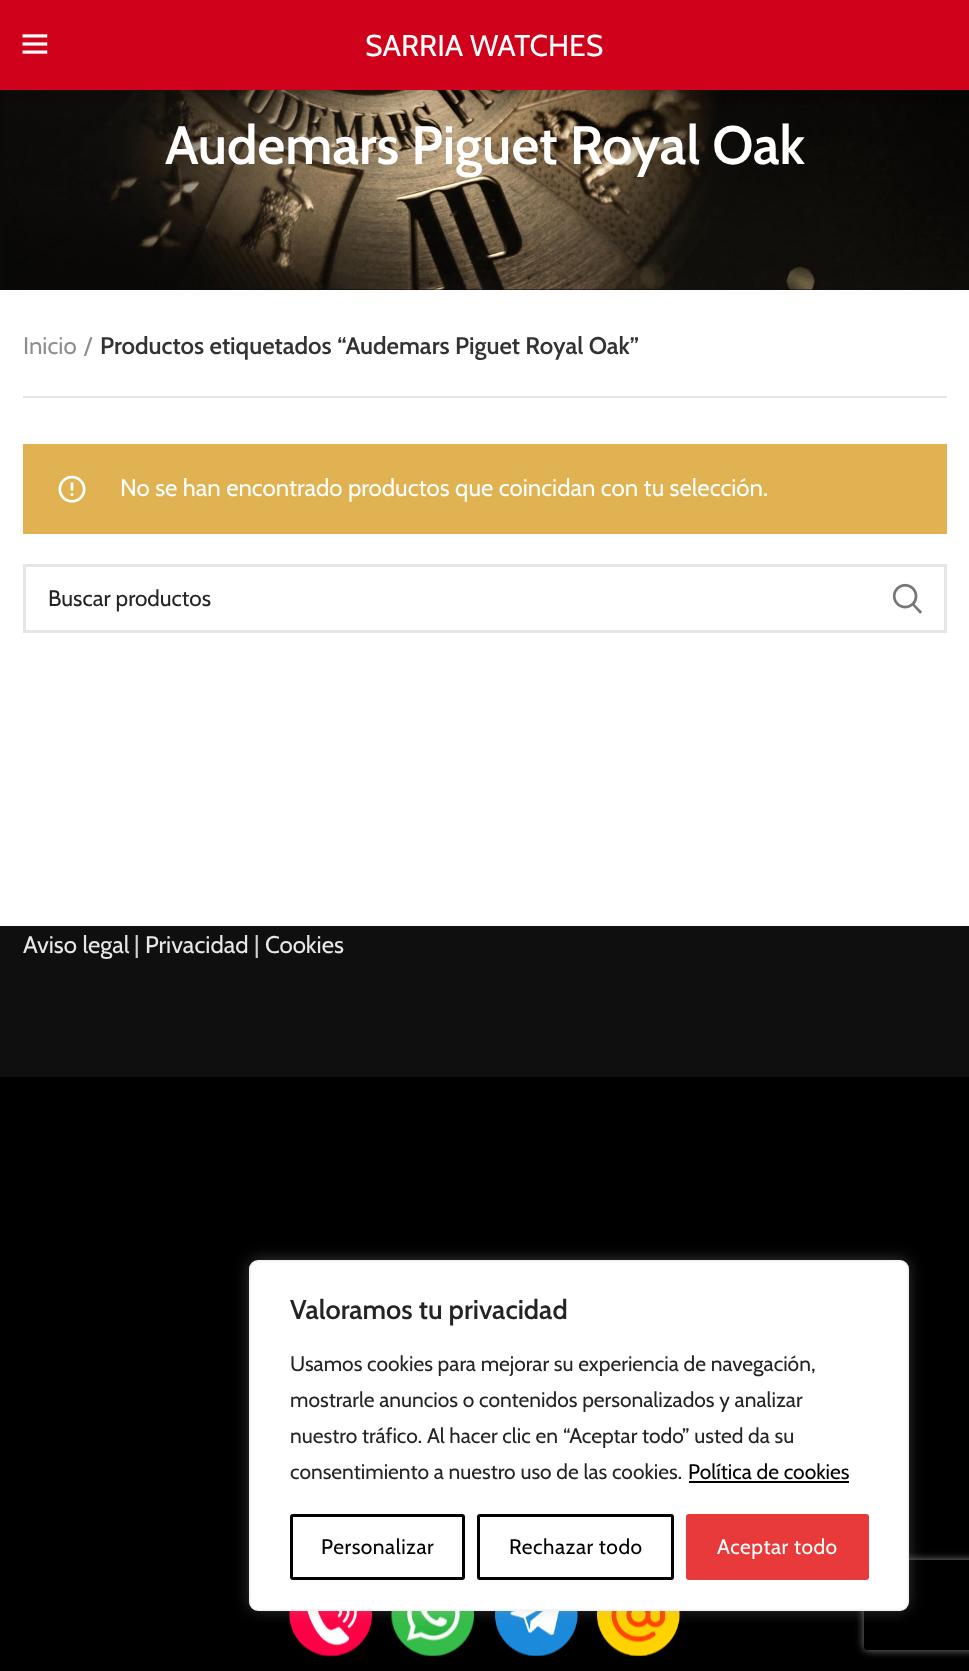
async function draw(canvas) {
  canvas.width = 969;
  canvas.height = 1671;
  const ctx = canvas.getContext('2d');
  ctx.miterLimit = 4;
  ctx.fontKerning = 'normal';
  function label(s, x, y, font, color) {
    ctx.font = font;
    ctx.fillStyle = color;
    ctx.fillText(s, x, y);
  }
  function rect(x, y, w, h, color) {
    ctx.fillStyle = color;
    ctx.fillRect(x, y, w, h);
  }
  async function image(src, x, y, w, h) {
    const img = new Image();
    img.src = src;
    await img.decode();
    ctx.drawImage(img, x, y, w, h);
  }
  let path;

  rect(0, 0, 969, 1671, '#000');
  rect(0, 290, 969, 636, '#fff');
  rect(0, 90, 969, 200, '#0a0a0a');
  await image('assets/img2.png', 4, 90, 965, 200);
  ctx.fillStyle = '#0000001a';
  ctx.filter = 'blur(6px)';
  ctx.beginPath();
  ctx.rect(0, 2, 969, 90);
  ctx.fill();
  ctx.filter = 'none';
  rect(0, 0, 969, 90, '#d0021b');
  await image('assets/img1.png', 22, 34, 26, 20);
  label('SARRIA WATCHES', 365, 56, '30px Cabin', '#fff');
  label('Audemars Piguet Royal Oak', 165, 164, '600 54px Cabin', '#fff');
  rect(23, 396, 924, 2, '#e6e6e6');
  label('Inicio', 23, 354, '24px Cabin', '#8e8e8e');
  label('/', 84, 354, '24px Cabin', '#8e8e8e');
  label('Productos etiquetados “Audemars Piguet Royal Oak”', 100, 354, '600 24px Cabin', '#333');
  rect(23, 444, 924, 90, '#e0b252');
  await image('assets/img3.png', 58, 475, 28, 28);
  label('No se han encontrado productos que coincidan con tu selección.', 120, 496, '24px Cabin', '#fff');
  ctx.strokeStyle = '#e6e6e6';
  ctx.lineWidth = 3;
  ctx.strokeRect(24.5, 565.5, 921, 66);
  label('Buscar productos', 48, 606, '22.5px Cabin', '#242424');
  await image('assets/img4.png', 892, 583, 30, 31);
  rect(0, 926, 969, 151, '#0f0f0f');
  label('Aviso legal', 23, 953, '24px Cabin', '#e7e7e7');
  label('|', 134, 953, '24px Cabin', '#cfcfcf');
  label('Privacidad', 145, 953, '24px Cabin', '#e7e7e7');
  label('|', 254, 953, '24px Cabin', '#cfcfcf');
  label('Cookies', 265, 953, '24px Cabin', '#e7e7e7');
  await image('assets/img5.png', 289, 1611, 83, 45);
  await image('assets/img6.png', 391, 1611, 83, 45);
  await image('assets/img7.png', 495, 1611, 83, 45);
  await image('assets/img8.png', 597, 1611, 83, 45);
  ctx.fillStyle = '#acabab4d';
  ctx.filter = 'blur(7.5px)';
  ctx.beginPath();
  ctx.roundRect(249, 1259, 660, 351, 9);
  ctx.fill();
  ctx.filter = 'none';
  ctx.save();
  path = new Path2D('M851 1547H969V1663H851ZM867 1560H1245C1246.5 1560 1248 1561.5 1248 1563V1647C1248 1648.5 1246.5 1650 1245 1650H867C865.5 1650 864 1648.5 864 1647V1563C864 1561.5 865.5 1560 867 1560Z');
  ctx.clip(path, 'evenodd');
  ctx.fillStyle = '#808080';
  ctx.filter = 'blur(4px)';
  ctx.beginPath();
  ctx.roundRect(864, 1560, 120, 90, 3);
  ctx.fill();
  ctx.filter = 'none';
  ctx.restore();
  ctx.fillStyle = '#fff';
  ctx.beginPath();
  ctx.roundRect(250, 1261, 658, 349, 8);
  ctx.fill();
  ctx.strokeStyle = '#f4f4f4';
  ctx.lineWidth = 2;
  ctx.stroke();
  label('Valoramos tu privacidad', 290, 1319, '600 27px Cabin', '#242424');
  label('Usamos cookies para mejorar su experiencia de navegación,', 290, 1371, '21px Cabin', '#242424');
  label('mostrarle anuncios o contenidos personalizados y analizar', 290, 1407, '21px Cabin', '#242424');
  label('nuestro tráfico. Al hacer clic en “Aceptar todo” usted da su', 290, 1443, '21px Cabin', '#242424');
  label('consentimiento a nuestro uso de las cookies.', 290, 1479, '21px Cabin', '#242424');
  label('Política de cookies', 688, 1479, '21px Cabin', '#000');
  rect(689, 1481, 160, 2, '#000');
  ctx.beginPath();
  ctx.roundRect(291.5, 1515.5, 172, 63, 1.5);
  ctx.strokeStyle = '#000';
  ctx.lineWidth = 3;
  ctx.stroke();
  ctx.letterSpacing = '0.5px';
  label('Personalizar', 321, 1554, '21px Cabin', '#000');
  ctx.beginPath();
  ctx.roundRect(478.5, 1515.5, 194, 63, 1.5);
  ctx.stroke();
  label('Rechazar todo', 509, 1554, '21px Cabin', '#000');
  ctx.fillStyle = '#e83a3a';
  ctx.beginPath();
  ctx.roundRect(687.5, 1515.5, 180, 63, 1.5);
  ctx.fill();
  ctx.strokeStyle = '#e83a3a';
  ctx.stroke();
  label('Aceptar todo', 717, 1554, '21px Cabin', '#fff');
}

draw(document.querySelector('canvas'));
